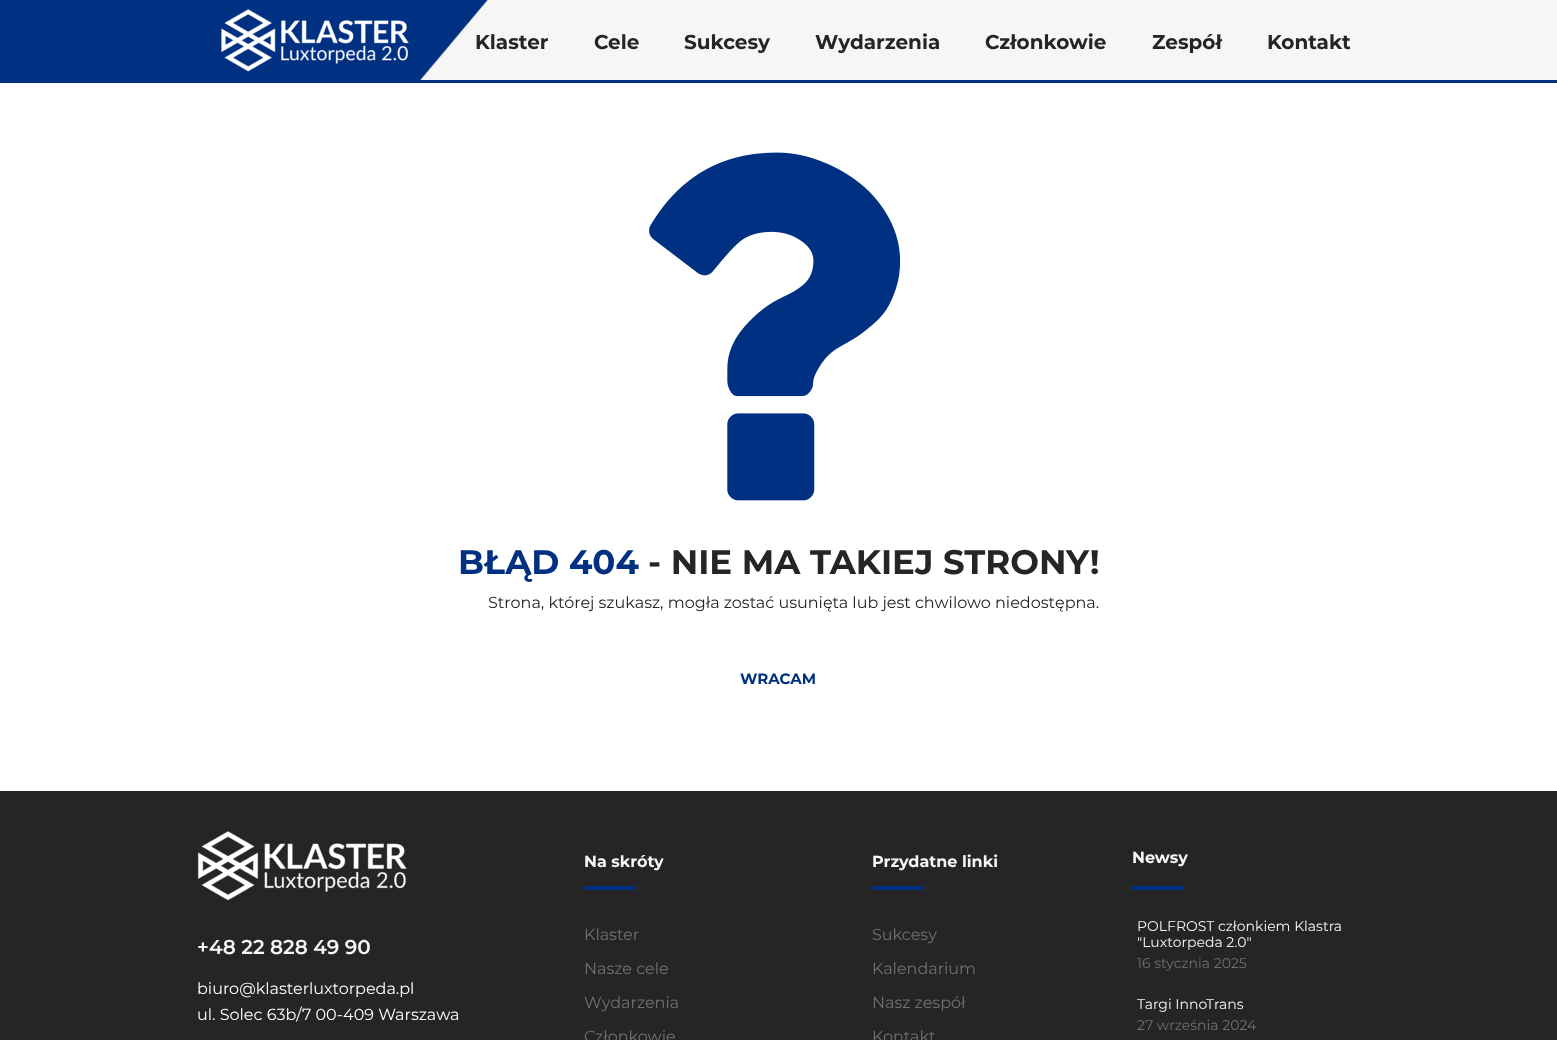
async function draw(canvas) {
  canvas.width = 1557;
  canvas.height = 1040;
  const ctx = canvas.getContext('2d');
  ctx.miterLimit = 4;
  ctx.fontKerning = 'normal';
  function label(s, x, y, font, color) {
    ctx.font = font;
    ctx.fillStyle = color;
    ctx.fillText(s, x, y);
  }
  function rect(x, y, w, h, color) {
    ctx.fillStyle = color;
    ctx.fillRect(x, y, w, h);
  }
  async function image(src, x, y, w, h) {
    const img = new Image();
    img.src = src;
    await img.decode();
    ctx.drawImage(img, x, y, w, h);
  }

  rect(0, 0, 1557, 1040, '#fff');
  rect(419, 0, 1138, 80, '#f6f6f6');
  rect(0, 80, 1557, 3, '#003082');
  await image('assets/img1.png', 0, 0, 488, 80);
  await image('assets/img2.png', 221, 9, 188, 63);
  label('Klaster', 475, 49, 'bold 20px Montserrat', '#252525');
  label('Cele', 594, 49, 'bold 20px Montserrat', '#252525');
  label('Sukcesy', 684, 49, 'bold 20px Montserrat', '#252525');
  label('Wydarzenia', 815, 49, 'bold 20px Montserrat', '#252525');
  label('Członkowie', 985, 49, 'bold 20px Montserrat', '#252525');
  label('Zespół', 1152, 49, 'bold 20px Montserrat', '#252525');
  label('Kontakt', 1267, 49, 'bold 20px Montserrat', '#252525');
  await image('assets/img3.png', 649, 152, 252, 349);
  label('BŁĄD 404', 458, 574, 'bold 34px Montserrat', '#003082');
  label('- NIE MA TAKIEJ STRONY!', 648, 574, 'bold 34px Montserrat', '#252525');
  label('Strona, której szukasz, mogła zostać usunięta lub jest chwilowo niedostępna.', 488, 608, '16px Montserrat', '#252525');
  label('WRACAM', 740, 684, 'bold 15px Montserrat', '#003082');
  rect(0, 791, 1557, 249, '#252525');
  await image('assets/img4.png', 197, 831, 210, 70);
  label('Na skróty', 584, 867, 'bold 16px Montserrat', '#f6f6f6');
  label('Przydatne linki', 872, 867, 'bold 16px Montserrat', '#f6f6f6');
  label('Newsy', 1132, 863, 'bold 16px Montserrat', '#f6f6f6');
  rect(584, 886, 52, 4, '#003082');
  rect(872, 886, 52, 4, '#003082');
  rect(1132, 886, 52, 4, '#003082');
  label('+48 22 828 49 90', 197, 954, '600 20px Montserrat', '#f6f6f6');
  label('Klaster', 584, 940, '16px Montserrat', '#707070');
  label('Nasze cele', 584, 974, '16px Montserrat', '#707070');
  label('Wydarzenia', 584, 1008, '16px Montserrat', '#707070');
  label('Członkowie', 584, 1042, '16px Montserrat', '#707070');
  label('Sukcesy', 872, 940, '16px Montserrat', '#707070');
  label('Kalendarium', 872, 974, '16px Montserrat', '#707070');
  label('Nasz zespół', 872, 1008, '16px Montserrat', '#707070');
  label('Kontakt', 872, 1042, '16px Montserrat', '#707070');
  label('POLFROST członkiem Klastra', 1137, 931, '14px Montserrat', '#f6f6f6');
  label('"Luxtorpeda 2.0"', 1137, 947, '14px Montserrat', '#f6f6f6');
  label('16 stycznia 2025', 1137, 968, '14px Montserrat', '#707070');
  label('Targi InnoTrans', 1137, 1009, '14px Montserrat', '#f6f6f6');
  label('27 września 2024', 1137, 1030, '14px Montserrat', '#707070');
  label('biuro@klasterluxtorpeda.pl', 197, 994, '16px Montserrat', '#fff');
  label('ul. Solec 63b/7 00-409 Warszawa', 197, 1020, '16px Montserrat', '#fff');
}

draw(document.querySelector('canvas'));
